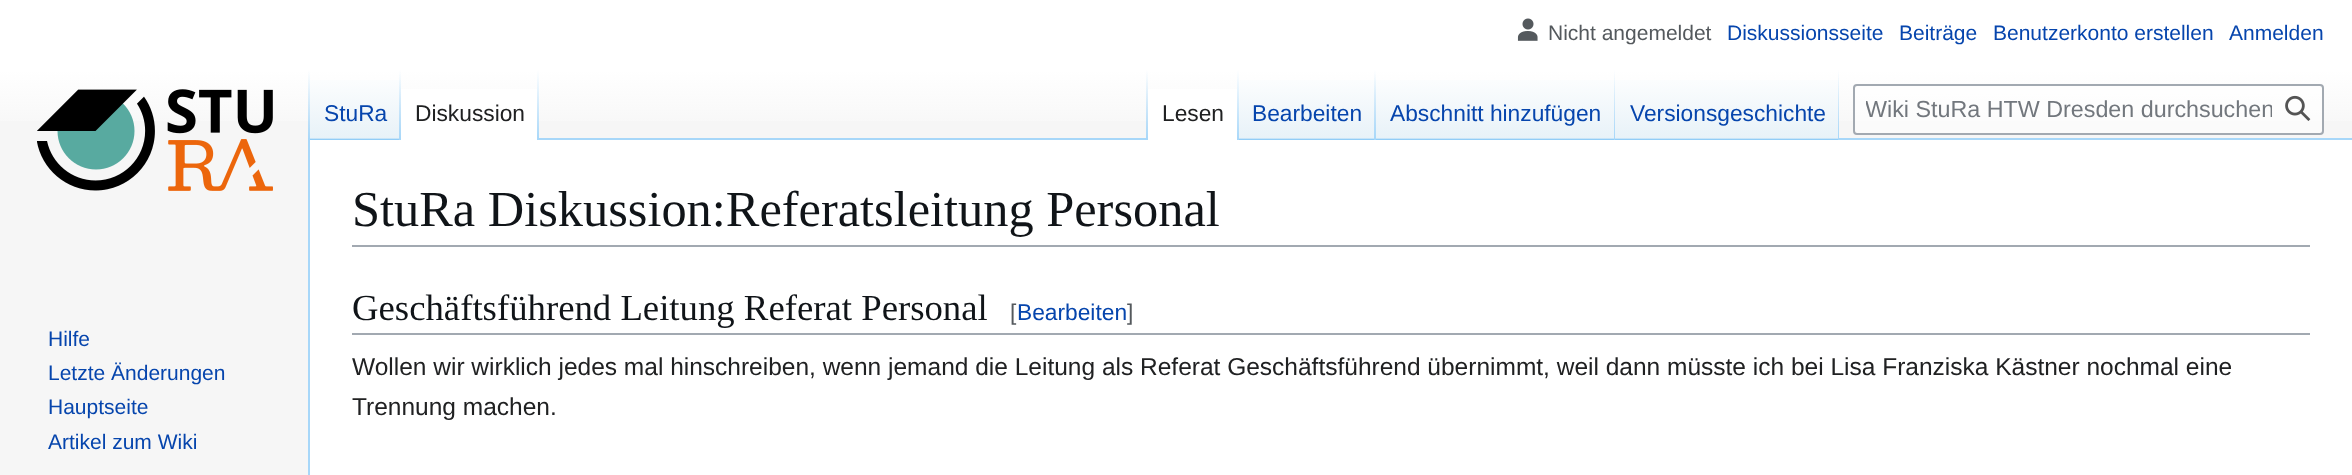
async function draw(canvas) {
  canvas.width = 2352;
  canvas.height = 475;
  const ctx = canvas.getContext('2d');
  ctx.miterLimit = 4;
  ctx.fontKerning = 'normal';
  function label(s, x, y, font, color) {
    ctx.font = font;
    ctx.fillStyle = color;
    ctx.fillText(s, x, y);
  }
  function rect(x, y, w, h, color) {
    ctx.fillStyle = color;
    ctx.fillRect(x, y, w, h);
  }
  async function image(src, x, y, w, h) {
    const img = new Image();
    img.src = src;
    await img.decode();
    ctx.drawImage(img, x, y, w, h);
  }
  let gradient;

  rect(0, 0, 2352, 475, '#f6f6f6');
  gradient = ctx.createLinearGradient(1176, 0, 1176, 140);
  gradient.addColorStop(0.5, '#fff');
  gradient.addColorStop(1, '#f6f6f6');
  ctx.fillStyle = gradient;
  ctx.fillRect(0, 0, 2352, 121);
  await image('assets/img1.png', 1517, 18, 21, 23);
  label('Nicht angemeldet', 1548, 40, '21px Liberation Sans', '#54595d');
  label('Diskussionsseite', 1727, 40, '21px Liberation Sans', '#0645ad');
  label('Beiträge', 1899, 40, '21px Liberation Sans', '#0645ad');
  label('Benutzerkonto erstellen', 1993, 40, '21px Liberation Sans', '#0645ad');
  label('Anmelden', 2229, 40, '21px Liberation Sans', '#0645ad');
  rect(308, 138, 2, 337, '#a7d7f9');
  gradient = ctx.createLinearGradient(309, 70, 309, 140);
  gradient.addColorStop(0, '#a7d7f900');
  gradient.addColorStop(1, '#a7d7f9');
  ctx.fillStyle = gradient;
  ctx.fillRect(308, 70, 2, 70);
  gradient = ctx.createLinearGradient(355, 140, 355, 70);
  gradient.addColorStop(0, '#77c1f6');
  gradient.addColorStop(0.03, '#e8f2f8');
  gradient.addColorStop(1, '#fff');
  ctx.fillStyle = gradient;
  ctx.fillRect(310, 80, 91, 60);
  gradient = ctx.createLinearGradient(400, 70, 400, 140);
  gradient.addColorStop(0, '#a7d7f900');
  gradient.addColorStop(1, '#a7d7f9');
  ctx.fillStyle = gradient;
  ctx.fillRect(399, 70, 2, 70);
  label('StuRa', 324, 121, '22.75px Liberation Sans', '#0645ad');
  rect(401, 89, 136, 51, '#fff');
  gradient = ctx.createLinearGradient(538, 70, 538, 140);
  gradient.addColorStop(0, '#fff');
  gradient.addColorStop(1, '#a7d7f9');
  ctx.fillStyle = gradient;
  ctx.fillRect(537, 70, 2, 70);
  label('Diskussion', 415, 121, '22.75px Liberation Sans', '#202122');
  rect(539, 138, 1813, 2, '#a7d7f9');
  gradient = ctx.createLinearGradient(1147, 70, 1147, 140);
  gradient.addColorStop(0, '#a7d7f900');
  gradient.addColorStop(1, '#a7d7f9');
  ctx.fillStyle = gradient;
  ctx.fillRect(1146, 70, 2, 70);
  rect(1148, 89, 89, 51, '#fff');
  gradient = ctx.createLinearGradient(1238, 70, 1238, 140);
  gradient.addColorStop(0, '#fff');
  gradient.addColorStop(1, '#a7d7f9');
  ctx.fillStyle = gradient;
  ctx.fillRect(1237, 70, 2, 70);
  label('Lesen', 1162, 121, '22.75px Liberation Sans', '#202122');
  gradient = ctx.createLinearGradient(1307, 140, 1307, 70);
  gradient.addColorStop(0, '#77c1f6');
  gradient.addColorStop(0.03, '#e8f2f8');
  gradient.addColorStop(1, '#fff');
  ctx.fillStyle = gradient;
  ctx.fillRect(1239, 80, 137, 60);
  gradient = ctx.createLinearGradient(1375, 70, 1375, 140);
  gradient.addColorStop(0, '#a7d7f900');
  gradient.addColorStop(1, '#a7d7f9');
  ctx.fillStyle = gradient;
  ctx.fillRect(1374, 70, 2, 70);
  label('Bearbeiten', 1252, 121, '22.75px Liberation Sans', '#0645ad');
  gradient = ctx.createLinearGradient(1495, 140, 1495, 70);
  gradient.addColorStop(0, '#77c1f6');
  gradient.addColorStop(0.03, '#e8f2f8');
  gradient.addColorStop(1, '#fff');
  ctx.fillStyle = gradient;
  ctx.fillRect(1376, 80, 239, 60);
  gradient = ctx.createLinearGradient(1614, 70, 1614, 140);
  gradient.addColorStop(0, '#a7d7f900');
  gradient.addColorStop(1, '#a7d7f9');
  ctx.fillStyle = gradient;
  ctx.fillRect(1614, 70, 1, 70);
  label('Abschnitt hinzufügen', 1390, 121, '22.75px Liberation Sans', '#0645ad');
  gradient = ctx.createLinearGradient(1727, 140, 1727, 70);
  gradient.addColorStop(0, '#77c1f6');
  gradient.addColorStop(0.03, '#e8f2f8');
  gradient.addColorStop(1, '#fff');
  ctx.fillStyle = gradient;
  ctx.fillRect(1615, 80, 224, 60);
  gradient = ctx.createLinearGradient(1838, 70, 1838, 140);
  gradient.addColorStop(0, '#a7d7f900');
  gradient.addColorStop(1, '#a7d7f9');
  ctx.fillStyle = gradient;
  ctx.fillRect(1838, 70, 1, 70);
  label('Versionsgeschichte', 1630, 121, '22.75px Liberation Sans', '#0645ad');
  ctx.fillStyle = '#ffffff80';
  ctx.beginPath();
  ctx.roundRect(1854, 85, 469, 49, 3);
  ctx.fill();
  ctx.strokeStyle = '#a2a9b1';
  ctx.lineWidth = 2;
  ctx.stroke();
  ctx.save();
  ctx.beginPath();
  ctx.rect(1866, 96, 406, 27);
  ctx.clip();
  label('Wiki StuRa HTW Dresden durchsuchen', 1865, 117, '23.3px Liberation Sans', '#72777d');
  ctx.restore();
  await image('assets/img2.png', 2285, 95, 26, 26);
  await image('assets/img3.png', 37, 89, 236, 102);
  label('Hilfe', 48, 346, '21px Liberation Sans', '#0645ad');
  label('Letzte Änderungen', 48, 380, '21px Liberation Sans', '#0645ad');
  label('Hauptseite', 48, 414, '21px Liberation Sans', '#0645ad');
  label('Artikel zum Wiki', 48, 449, '21px Liberation Sans', '#0645ad');
  rect(310, 140, 2042, 335, '#fff');
  rect(352, 245, 1958, 2, '#a2a9b1');
  label('StuRa Diskussion:Referatsleitung Personal', 352, 226, '50.4px Liberation Serif', '#101418');
  rect(352, 333, 1958, 2, '#a2a9b1');
  label('Geschäftsführend Leitung Referat Personal', 352, 320, '36.75px Liberation Serif', '#101418');
  label('[', 1010, 320, '22.75px Liberation Sans', '#54595d');
  label('Bearbeiten', 1017, 320, '22.75px Liberation Sans', '#0645ad');
  label(']', 1127, 320, '22.75px Liberation Sans', '#54595d');
  label('Wollen wir wirklich jedes mal hinschreiben, wenn jemand die Leitung als Referat Geschäftsführend übernimmt, weil dann müsste ich bei Lisa Franziska Kästner nochmal eine', 352, 375, '24.5px Liberation Sans', '#202122');
  label('Trennung machen.', 352, 415, '24.5px Liberation Sans', '#202122');
}

draw(document.querySelector('canvas'));
